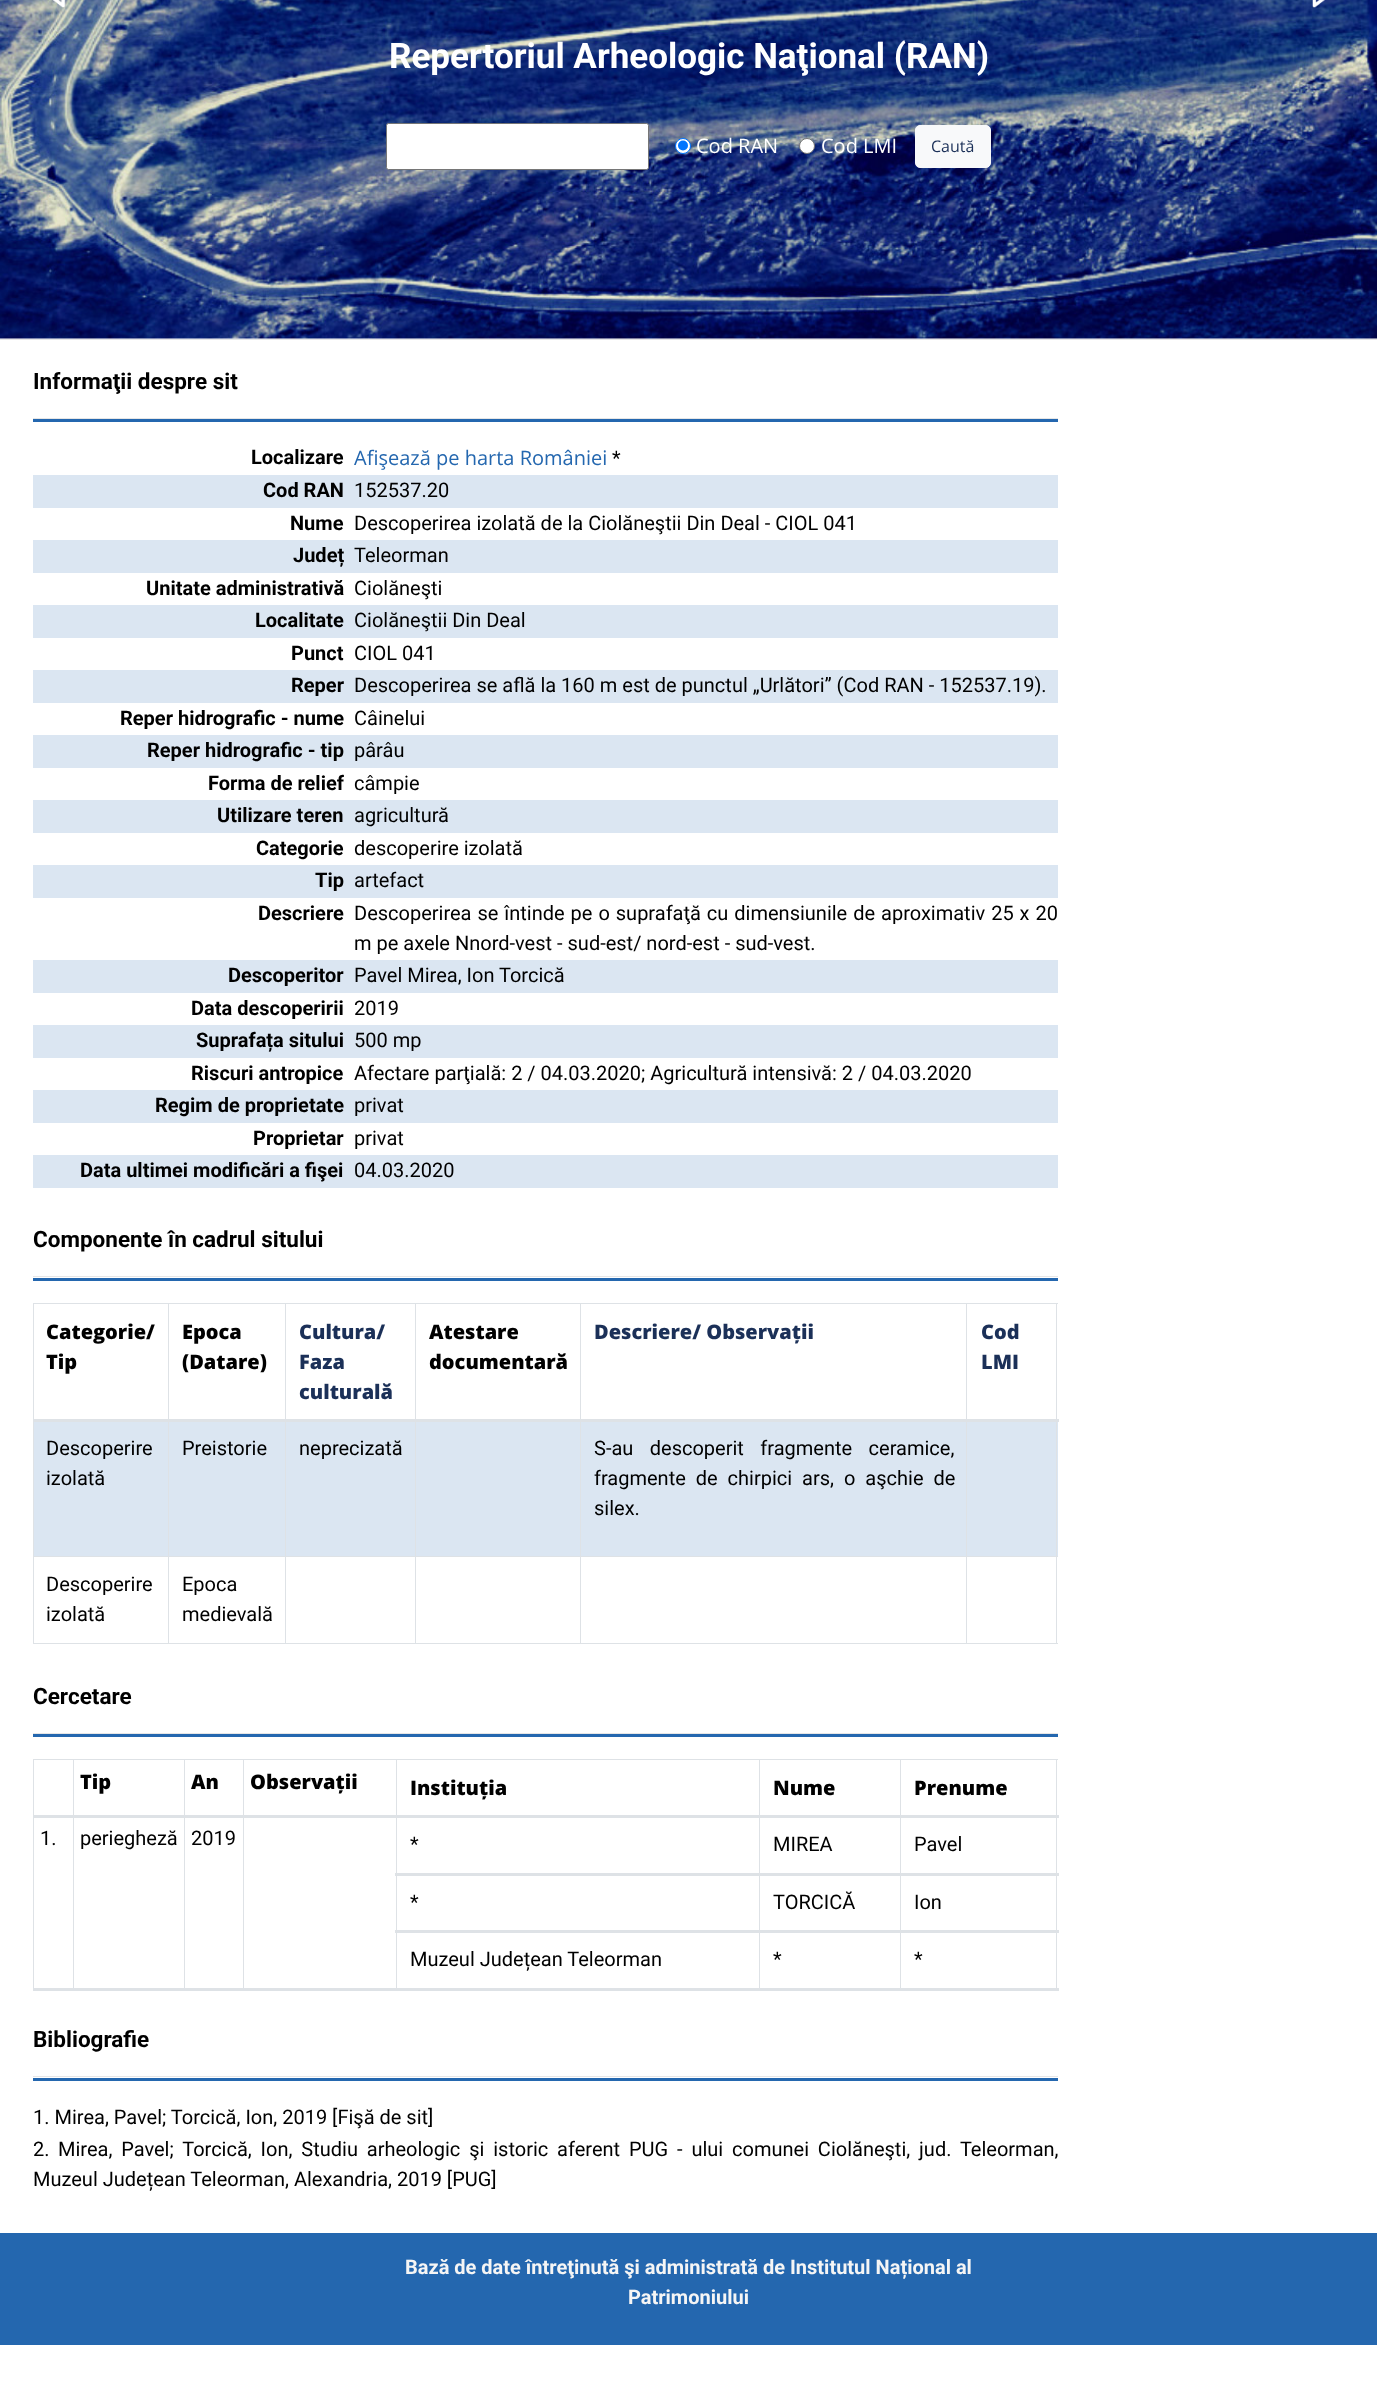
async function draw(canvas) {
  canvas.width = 1377;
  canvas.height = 2383;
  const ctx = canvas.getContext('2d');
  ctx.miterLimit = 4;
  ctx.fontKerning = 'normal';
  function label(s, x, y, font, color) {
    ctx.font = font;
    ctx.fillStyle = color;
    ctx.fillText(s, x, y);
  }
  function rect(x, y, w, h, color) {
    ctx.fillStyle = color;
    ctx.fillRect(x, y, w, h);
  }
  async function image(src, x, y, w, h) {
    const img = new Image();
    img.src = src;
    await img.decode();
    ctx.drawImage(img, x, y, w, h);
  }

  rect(0, 0, 1377, 2383, '#fff');
  await image('assets/img1.png', 0, 0, 1377, 339);
  await image('assets/img2.png', 53, 0, 13, 8);
  await image('assets/img3.png', 1312, 0, 13, 8);
  label('Repertoriul Arheologic Naţional (RAN)', 389, 68, 'bold 35px Roboto', '#fff');
  ctx.beginPath();
  ctx.roundRect(386.5, 123.5, 262, 46, 2);
  ctx.fill();
  ctx.strokeStyle = '#767676';
  ctx.stroke();
  ctx.beginPath();
  ctx.arc(683, 146, 7.5, 0, 2 * Math.PI);
  ctx.fill();
  ctx.strokeStyle = '#0075ff';
  ctx.stroke();
  ctx.fillStyle = '#0075ff';
  ctx.beginPath();
  ctx.arc(683, 145.5, 5, 0, 2 * Math.PI);
  ctx.fill();
  label('Cod RAN', 696, 153, '20px Open Sans', '#fff');
  ctx.beginPath();
  ctx.arc(807, 146, 7.5, 0, 2 * Math.PI);
  ctx.fill();
  ctx.strokeStyle = '#767676';
  ctx.stroke();
  label('Cod LMI', 821, 153, '20px Open Sans', '#fff');
  ctx.fillStyle = '#f8f9fa';
  ctx.beginPath();
  ctx.roundRect(915.5, 125.5, 75, 42, 4.5);
  ctx.fill();
  ctx.strokeStyle = '#f8f9fa';
  ctx.stroke();
  label('Caută', 931, 152, '16px Open Sans', '#1b3058');
  rect(0, 339, 1377, 1, '#e6e6e6');
  label('Informaţii despre sit', 33, 389, 'bold 22.5px Roboto', '#000');
  rect(33, 418, 1025, 1, '#e6e6e6');
  rect(33, 419, 1025, 3, '#2467af');
  label('Localizare', 251, 464, 'bold 20px Roboto', '#000');
  label('Afişează pe harta României', 354, 465, '20px Open Sans', '#2467af');
  label('*', 612, 465, '20px Roboto', '#000');
  rect(33, 475, 1025, 33, '#dbe6f2');
  label('Cod RAN', 263, 497, 'bold 20px Roboto', '#000');
  label('152537.20', 354, 497, '20px Roboto', '#000');
  label('Nume', 290, 530, 'bold 20px Roboto', '#000');
  label('Descoperirea izolată de la Ciolăneştii Din Deal - CIOL 041', 354, 530, '20px Roboto', '#000');
  rect(33, 540, 1025, 33, '#dbe6f2');
  label('Județ', 293, 562, 'bold 20px Roboto', '#000');
  label('Teleorman', 354, 562, '20px Roboto', '#000');
  label('Unitate administrativă', 146, 595, 'bold 20px Roboto', '#000');
  label('Ciolăneşti', 354, 595, '20px Roboto', '#000');
  rect(33, 605, 1025, 33, '#dbe6f2');
  label('Localitate', 255, 627, 'bold 20px Roboto', '#000');
  label('Ciolăneştii Din Deal', 354, 627, '20px Roboto', '#000');
  label('Punct', 291, 660, 'bold 20px Roboto', '#000');
  label('CIOL 041', 354, 660, '20px Roboto', '#000');
  rect(33, 670, 1025, 33, '#dbe6f2');
  label('Reper', 291, 692, 'bold 20px Roboto', '#000');
  label('Descoperirea se află la 160 m est de punctul „Urlători” (Cod RAN - 152537.19).', 354, 692, '20px Roboto', '#000');
  label('Reper hidrografic - nume', 120, 725, 'bold 20px Roboto', '#000');
  label('Câinelui', 354, 725, '20px Roboto', '#000');
  rect(33, 735, 1025, 33, '#dbe6f2');
  label('Reper hidrografic - tip', 147, 757, 'bold 20px Roboto', '#000');
  label('pârâu', 354, 757, '20px Roboto', '#000');
  label('Forma de relief', 208, 790, 'bold 20px Roboto', '#000');
  label('câmpie', 354, 790, '20px Roboto', '#000');
  rect(33, 800, 1025, 33, '#dbe6f2');
  label('Utilizare teren', 217, 822, 'bold 20px Roboto', '#000');
  label('agricultură', 354, 822, '20px Roboto', '#000');
  label('Categorie', 256, 855, 'bold 20px Roboto', '#000');
  label('descoperire izolată', 354, 855, '20px Roboto', '#000');
  rect(33, 865, 1025, 33, '#dbe6f2');
  label('Tip', 315, 887, 'bold 20px Roboto', '#000');
  label('artefact', 354, 887, '20px Roboto', '#000');
  label('Descriere', 258, 920, 'bold 20px Roboto', '#000');
  ctx.wordSpacing = '1px';
  label('Descoperirea se întinde pe o suprafaţă cu dimensiunile de aproximativ 25 x 20', 354, 920, '20px Roboto', '#000');
  ctx.wordSpacing = '0px';
  label('m pe axele Nnord-vest - sud-est/ nord-est - sud-vest.', 354, 950, '20px Roboto', '#000');
  rect(33, 960, 1025, 33, '#dbe6f2');
  label('Descoperitor', 228, 982, 'bold 20px Roboto', '#000');
  label('Pavel Mirea, Ion Torcică', 354, 982, '20px Roboto', '#000');
  label('Data descoperirii', 191, 1015, 'bold 20px Roboto', '#000');
  label('2019', 354, 1015, '20px Roboto', '#000');
  rect(33, 1025, 1025, 33, '#dbe6f2');
  label('Suprafața sitului', 196, 1047, 'bold 20px Roboto', '#000');
  label('500 mp', 354, 1047, '20px Roboto', '#000');
  label('Riscuri antropice', 191, 1080, 'bold 20px Roboto', '#000');
  label('Afectare parţială: 2 / 04.03.2020; Agricultură intensivă: 2 / 04.03.2020', 354, 1080, '20px Roboto', '#000');
  rect(33, 1090, 1025, 33, '#dbe6f2');
  label('Regim de proprietate', 155, 1112, 'bold 20px Roboto', '#000');
  label('privat', 354, 1112, '20px Roboto', '#000');
  label('Proprietar', 253, 1145, 'bold 20px Roboto', '#000');
  label('privat', 354, 1145, '20px Roboto', '#000');
  rect(33, 1155, 1025, 33, '#dbe6f2');
  label('Data ultimei modificări a fişei', 80, 1177, 'bold 20px Roboto', '#000');
  label('04.03.2020', 354, 1177, '20px Roboto', '#000');
  label('Componente în cadrul sitului', 33, 1247, 'bold 22.5px Roboto', '#000');
  rect(33, 1276, 1025, 1, '#e6e6e6');
  rect(33, 1278, 1025, 3, '#2467af');
  rect(33, 1303, 1025, 1, '#dee2e6');
  rect(34, 1422, 1024, 134, '#dbe6f2');
  rect(1056, 1303, 1, 341, '#dee2e6');
  rect(33, 1643, 1025, 1, '#dee2e6');
  rect(33, 1303, 1, 341, '#dee2e6');
  label('Categorie/', 46, 1339, '800 20px Open Sans', '#000');
  label('Tip', 46, 1369, '800 20px Open Sans', '#000');
  label('Epoca', 182, 1339, '800 20px Open Sans', '#000');
  label('(Datare)', 182, 1369, '800 20px Open Sans', '#000');
  label('Cultura/', 299, 1339, '800 20px Open Sans', '#1b3058');
  label('Faza', 299, 1369, '800 20px Open Sans', '#1b3058');
  label('culturală', 299, 1399, '800 20px Open Sans', '#1b3058');
  label('Atestare', 429, 1339, '800 20px Open Sans', '#000');
  label('documentară', 429, 1369, '800 20px Open Sans', '#000');
  label('Descriere/ Observații', 594, 1339, '800 20px Open Sans', '#1b3058');
  rect(966, 1556, 92, 1, '#dee2e6');
  rect(966, 1556, 1, 88, '#dee2e6');
  rect(580, 1556, 388, 1, '#dee2e6');
  rect(580, 1556, 1, 88, '#dee2e6');
  rect(415, 1556, 166, 1, '#dee2e6');
  rect(415, 1556, 1, 88, '#dee2e6');
  rect(285, 1556, 131, 1, '#dee2e6');
  rect(285, 1556, 1, 88, '#dee2e6');
  rect(168, 1556, 118, 1, '#dee2e6');
  rect(168, 1556, 1, 88, '#dee2e6');
  rect(33, 1556, 136, 1, '#dee2e6');
  rect(168, 1303, 1, 255, '#dee2e6');
  rect(285, 1303, 1, 255, '#dee2e6');
  rect(415, 1303, 1, 255, '#dee2e6');
  rect(580, 1303, 1, 255, '#dee2e6');
  rect(966, 1303, 1, 255, '#dee2e6');
  rect(33, 1419, 1026, 3, '#dee2e6');
  label('Cod', 981, 1339, '800 20px Open Sans', '#1b3058');
  label('LMI', 981, 1369, '800 20px Open Sans', '#1b3058');
  label('Descoperire', 46, 1455, '20px Roboto', '#000');
  label('izolată', 46, 1485, '20px Roboto', '#000');
  label('Preistorie', 182, 1455, '20px Roboto', '#000');
  label('neprecizată', 299, 1455, '20px Roboto', '#000');
  ctx.wordSpacing = '11.5px';
  label('S-au descoperit fragmente ceramice,', 594, 1455, '20px Roboto', '#000');
  ctx.wordSpacing = '5px';
  label('fragmente de chirpici ars, o aşchie de', 594, 1485, '20px Roboto', '#000');
  ctx.wordSpacing = '0px';
  label('silex.', 594, 1515, '20px Roboto', '#000');
  label('Descoperire', 46, 1591, '20px Roboto', '#000');
  label('izolată', 46, 1621, '20px Roboto', '#000');
  label('Epoca', 182, 1591, '20px Roboto', '#000');
  label('medievală', 182, 1621, '20px Roboto', '#000');
  label('Cercetare', 33, 1704, 'bold 22.5px Roboto', '#000');
  rect(33, 1733, 1025, 1, '#e6e6e6');
  rect(33, 1734, 1025, 3, '#2467af');
  rect(33, 1759, 1025, 1, '#dee2e6');
  rect(1056, 1759, 1, 231, '#dee2e6');
  rect(33, 1759, 1, 231, '#dee2e6');
  label('Tip', 80, 1789, '800 20px Open Sans', '#000');
  label('An', 191, 1789, '800 20px Open Sans', '#000');
  label('Observații', 250, 1789, '800 20px Open Sans', '#000');
  label('Instituția', 410, 1795, '800 20px Open Sans', '#000');
  label('Nume', 773, 1795, '800 20px Open Sans', '#000');
  rect(73, 1759, 1, 230, '#dee2e6');
  rect(184, 1759, 1, 230, '#dee2e6');
  rect(243, 1759, 1, 230, '#dee2e6');
  rect(396, 1759, 1, 230, '#dee2e6');
  rect(759, 1759, 1, 230, '#dee2e6');
  rect(900, 1759, 1, 230, '#dee2e6');
  rect(33, 1815, 1026, 3, '#dee2e6');
  label('Prenume', 914, 1795, '800 20px Open Sans', '#000');
  label('1.', 40, 1845, '20px Roboto', '#000');
  label('periegheză', 80, 1845, '20px Roboto', '#000');
  label('2019', 191, 1845, '20px Roboto', '#000');
  label('*', 410, 1851, '20px Roboto', '#000');
  label('MIREA', 773, 1851, '20px Roboto', '#000');
  rect(395, 1873, 664, 3, '#dee2e6');
  label('Pavel', 914, 1851, '20px Roboto', '#000');
  label('*', 410, 1909, '20px Roboto', '#000');
  label('TORCICĂ', 773, 1909, '20px Roboto', '#000');
  rect(395, 1930, 664, 3, '#dee2e6');
  label('Ion', 914, 1909, '20px Roboto', '#000');
  label('Muzeul Județean Teleorman', 410, 1966, '20px Roboto', '#000');
  label('*', 773, 1966, '20px Roboto', '#000');
  rect(33, 1988, 1026, 3, '#dee2e6');
  label('*', 914, 1966, '20px Roboto', '#000');
  label('Bibliografie', 33, 2047, 'bold 22.5px Roboto', '#000');
  rect(33, 2076, 1025, 1, '#e6e6e6');
  rect(33, 2078, 1025, 3, '#2467af');
  label('1. Mirea, Pavel; Torcică, Ion, 2019 [Fişă de sit]', 33, 2124, '20px Roboto', '#000');
  label('2.', 33, 2156, '20px Roboto', '#000');
  ctx.wordSpacing = '3.9px';
  label('Mirea, Pavel; Torcică, Ion, Studiu arheologic şi istoric aferent PUG - ului comunei Ciolăneşti, jud. Teleorman,', 58, 2156, '20px Roboto', '#000');
  ctx.wordSpacing = '0px';
  label('Muzeul Județean Teleorman, Alexandria, 2019 [PUG]', 33, 2186, '20px Roboto', '#000');
  rect(0, 2233, 1377, 112, '#2467af');
  label('Bază de date întreţinută şi administrată de Institutul Național al', 405, 2274, 'bold 20px Roboto', '#f5f5f5');
  label('Patrimoniului', 628, 2304, 'bold 20px Roboto', '#f5f5f5');
}

draw(document.querySelector('canvas'));
